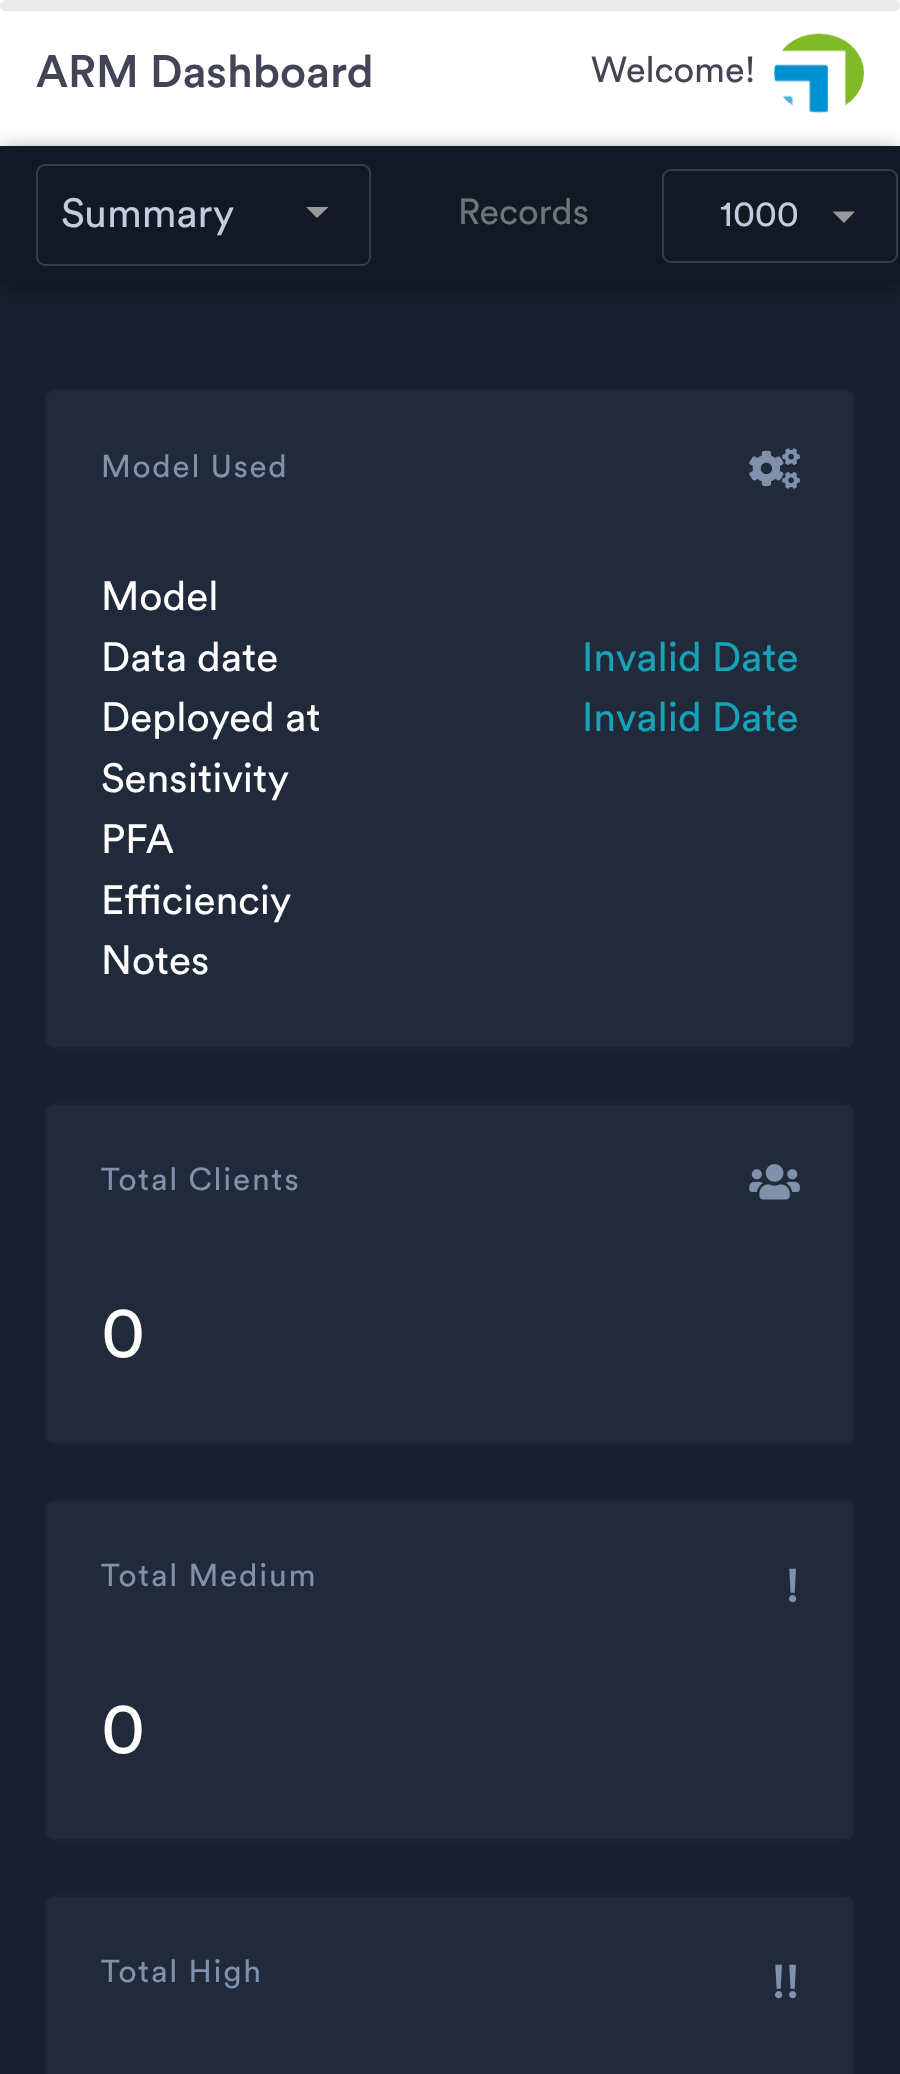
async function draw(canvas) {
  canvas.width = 900;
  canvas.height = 2074;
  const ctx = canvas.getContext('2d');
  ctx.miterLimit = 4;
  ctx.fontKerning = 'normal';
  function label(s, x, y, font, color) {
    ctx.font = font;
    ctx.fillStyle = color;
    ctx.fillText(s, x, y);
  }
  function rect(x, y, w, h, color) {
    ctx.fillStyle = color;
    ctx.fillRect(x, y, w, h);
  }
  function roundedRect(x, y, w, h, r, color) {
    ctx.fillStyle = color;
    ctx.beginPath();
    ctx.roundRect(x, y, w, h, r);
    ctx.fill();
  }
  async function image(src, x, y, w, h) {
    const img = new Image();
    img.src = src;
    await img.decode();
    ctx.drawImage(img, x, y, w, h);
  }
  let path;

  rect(0, 0, 900, 2074, '#17202e');
  rect(0, 0, 900, 146, '#fff');
  roundedRect(0, 0, 900, 11, 5.5, '#e9ecef');
  label('ARM Dashboard', 36, 87, '500 45px Circular', '#434456');
  label('Welcome!', 591, 82, '36px Circular', '#434456');
  await image('assets/img1.png', 774, 33, 90, 80);
  ctx.fillStyle = '#0000006e';
  ctx.filter = 'blur(11px)';
  ctx.beginPath();
  ctx.rect(0, 151, 900, 135);
  ctx.fill();
  ctx.filter = 'none';
  rect(0, 146, 900, 135, '#131924');
  ctx.beginPath();
  ctx.roundRect(37, 165, 333, 100, 8);
  ctx.strokeStyle = '#363d49';
  ctx.lineWidth = 2;
  ctx.stroke();
  label('Summary', 61, 227, '40.5px Circular', '#c1ccde');
  ctx.fillStyle = '#999';
  path = new Path2D('M306 207H328.5L317 218Z');
  ctx.fill(path);
  label('Records', 458, 224, '36px Circular', '#6c757d');
  ctx.beginPath();
  ctx.roundRect(663, 170, 234, 92, 8);
  ctx.stroke();
  label('1000', 720, 226, '36px Circular', '#c1ccde');
  ctx.fillStyle = '#999';
  path = new Path2D('M832.5 211.5H855L844 223Z');
  ctx.fill(path);
  roundedRect(45, 389, 810, 660, 9, '#202a3b');
  ctx.beginPath();
  ctx.roundRect(46, 390, 808, 658, 8);
  ctx.strokeStyle = '#0000001f';
  ctx.stroke();
  ctx.letterSpacing = '1.75px';
  label('Model Used', 101, 477, '31.5px Circular', '#8091ab');
  await image('assets/img2.png', 749, 448, 51, 41);
  ctx.letterSpacing = '0px';
  label('Model', 101, 610, '40.5px Circular', '#fff');
  label('Data date', 101, 671, '40.5px Circular', '#fff');
  label('Invalid Date', 582, 671, '40.5px Circular', '#17a2b8');
  label('Deployed at', 101, 731, '40.5px Circular', '#fff');
  label('Invalid Date', 582, 731, '40.5px Circular', '#17a2b8');
  label('Sensitivity', 101, 792, '40.5px Circular', '#fff');
  label('PFA', 101, 853, '40.5px Circular', '#fff');
  label('Efficienciy', 101, 914, '40.5px Circular', '#fff');
  label('Notes', 101, 974, '40.5px Circular', '#fff');
  roundedRect(45, 1103, 810, 342, 9, '#202a3b');
  ctx.beginPath();
  ctx.roundRect(46, 1104, 808, 340, 8);
  ctx.stroke();
  ctx.letterSpacing = '1.75px';
  label('Total Clients', 101, 1190, '31.5px Circular', '#8091ab');
  await image('assets/img3.png', 749, 1164, 51, 36);
  ctx.letterSpacing = '0px';
  label('0', 101, 1357, '72px Circular', '#fff');
  roundedRect(45, 1499, 810, 342, 9, '#202a3b');
  ctx.beginPath();
  ctx.roundRect(46, 1500, 808, 340, 8);
  ctx.stroke();
  ctx.letterSpacing = '1.75px';
  label('Total Medium', 101, 1586, '31.5px Circular', '#8091ab');
  ctx.letterSpacing = '0px';
  label('!', 785, 1602, 'bold 45px Circular', '#8091ab');
  label('0', 101, 1753, '72px Circular', '#fff');
  roundedRect(45, 1895, 810, 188, 9, '#202a3b');
  ctx.beginPath();
  ctx.roundRect(46, 1896, 808, 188, 8);
  ctx.stroke();
  ctx.letterSpacing = '1.75px';
  label('Total High', 101, 1982, '31.5px Circular', '#8091ab');
  ctx.letterSpacing = '0px';
  label('!!', 771, 1998, 'bold 45px Circular', '#8091ab');
}

draw(document.querySelector('canvas'));
